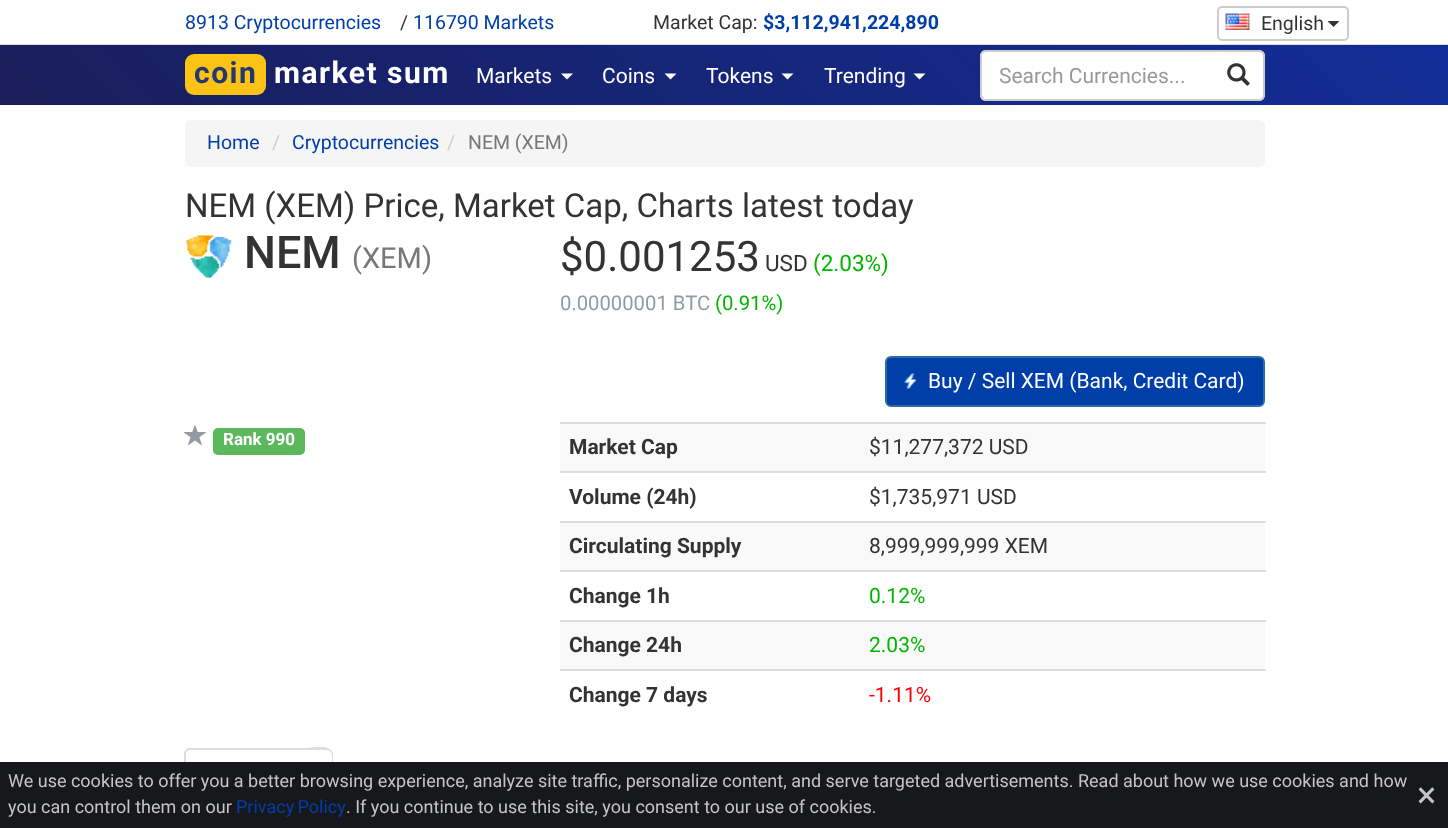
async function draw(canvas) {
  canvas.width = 1448;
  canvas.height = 828;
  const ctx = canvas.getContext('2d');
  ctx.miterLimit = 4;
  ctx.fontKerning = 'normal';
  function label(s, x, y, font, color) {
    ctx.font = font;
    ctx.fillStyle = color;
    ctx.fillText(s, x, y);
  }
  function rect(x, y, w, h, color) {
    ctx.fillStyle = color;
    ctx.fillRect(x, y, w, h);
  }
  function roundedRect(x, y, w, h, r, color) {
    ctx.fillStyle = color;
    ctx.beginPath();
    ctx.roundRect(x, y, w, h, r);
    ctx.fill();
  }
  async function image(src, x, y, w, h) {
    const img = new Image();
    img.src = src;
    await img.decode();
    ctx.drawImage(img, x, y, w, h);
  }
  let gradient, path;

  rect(0, 0, 1448, 828, '#fff');
  rect(0, 44, 1448, 1, '#ddd');
  label('8913 Cryptocurrencies', 185, 29, '19.5px Roboto', '#003ea9');
  label('/', 400, 29, '19.5px Roboto', '#333');
  label('116790 Markets', 413, 29, '19.5px Roboto', '#003ea9');
  label('Market Cap:', 653, 29, '19.5px Roboto', '#333');
  label('$3,112,941,224,890', 763, 29, 'bold 19.5px Roboto', '#003ea9');
  ctx.beginPath();
  ctx.roundRect(1218, 7, 130, 33, 4);
  ctx.strokeStyle = '#ccc';
  ctx.lineWidth = 2;
  ctx.stroke();
  await image('assets/img1.png', 1225, 13, 25, 17);
  label('English', 1261, 30, '19.5px Roboto', '#333');
  path = new Path2D('M1327.5 21H1339.5L1333.5 27Z');
  ctx.fill(path);
  gradient = ctx.createLinearGradient(347, 452, 1102, -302);
  gradient.addColorStop(0, '#1a1e5a');
  gradient.addColorStop(1, '#122d98');
  ctx.fillStyle = gradient;
  ctx.fillRect(0, 45, 1448, 60);
  roundedRect(185, 54, 81, 41, 9, '#fac315');
  ctx.letterSpacing = '1.5px';
  label('coin', 194, 83, 'bold 30px Roboto', '#233870');
  label('market sum', 274, 83, 'bold 30px Roboto', '#fff');
  ctx.letterSpacing = '0px';
  label('Markets', 476, 83, '21px Roboto', '#fff');
  path = new Path2D('M561 73.5H573L567 79.5Z');
  ctx.fill(path);
  label('Coins', 602, 83, '21px Roboto', '#fff');
  path = new Path2D('M664.5 73.5H676.5L670.5 79.5Z');
  ctx.fill(path);
  label('Tokens', 706, 83, '21px Roboto', '#fff');
  path = new Path2D('M781.5 73.5H793.5L787.5 79.5Z');
  ctx.fill(path);
  label('Trending', 824, 83, '21px Roboto', '#fff');
  path = new Path2D('M913.5 73.5H925.5L919.5 79.5Z');
  ctx.fill(path);
  roundedRect(980, 50, 285, 51, 6, '#fff');
  ctx.fillStyle = '#ececec';
  path = new Path2D('M986 52H1258C1261 52 1263 55 1263 57V56C1263 53 1261 51 1258 51H986C983 51 981 53 981 56V57C981 55 983 52 986 52Z');
  ctx.fill(path);
  ctx.beginPath();
  ctx.roundRect(981, 51, 283, 49, 5);
  ctx.stroke();
  label('Search Currencies...', 999, 83, '21px Roboto', '#999');
  await image('assets/img2.png', 1227, 63, 23, 23);
  roundedRect(185, 120, 1080, 47, 6, '#f5f5f5');
  label('Home', 207, 149, '19.5px Roboto', '#003ea9');
  label('/', 272, 149, '19.5px Roboto', '#ccc');
  label('Cryptocurrencies', 292, 149, '19.5px Roboto', '#003ea9');
  label('/', 447, 149, '19.5px Roboto', '#ccc');
  label('NEM (XEM)', 468, 149, '19.5px Roboto', '#777');
  label('NEM (XEM) Price, Market Cap, Charts latest today', 185, 217, '33px Roboto', '#333');
  await image('assets/img3.png', 185, 235, 47, 44);
  label('NEM', 244, 268, '500 45px Roboto', '#333');
  label('(XEM)', 352, 268, '29px Roboto', '#777');
  label('$0.001253', 560, 271, '42px Roboto', '#333');
  label('USD', 765, 271, '22.5px Roboto', '#333');
  label('(2.03%)', 813, 271, '22.5px Roboto', '#00b600');
  label('0.00000001 BTC', 560, 310, '20.25px Roboto', '#939aa0');
  label('(0.91%)', 715, 310, '20.25px Roboto', '#00b600');
  ctx.fillStyle = '#003ea9';
  ctx.beginPath();
  ctx.roundRect(886, 357, 378, 49, 5);
  ctx.fill();
  ctx.strokeStyle = '#2e6da4';
  ctx.stroke();
  await image('assets/img4.png', 904, 373, 13, 16);
  label('Buy / Sell XEM (Bank, Credit Card)', 928, 388, '21px Roboto', '#fff');
  await image('assets/img5.png', 183, 425, 23, 21);
  roundedRect(213, 428, 92, 27, 5, '#5cb85c');
  label('Rank 990', 223, 445, 'bold 17px Roboto', '#fff');
  rect(560, 424, 705, 47, '#f9f9f9');
  label('Market Cap', 569, 454, 'bold 21px Roboto', '#333');
  rect(560, 422, 706, 2, '#ddd');
  label('$11,277,372 USD', 869, 454, '21px Roboto', '#333');
  label('Volume (24h)', 569, 504, 'bold 21px Roboto', '#333');
  rect(560, 471, 706, 2, '#ddd');
  label('$1,735,971 USD', 869, 504, '21px Roboto', '#333');
  rect(560, 523, 705, 47, '#f9f9f9');
  label('Circulating Supply', 569, 553, 'bold 21px Roboto', '#333');
  rect(560, 521, 706, 2, '#ddd');
  label('8,999,999,999 XEM', 869, 553, '21px Roboto', '#333');
  label('Change 1h', 569, 603, 'bold 21px Roboto', '#333');
  rect(560, 570, 706, 2, '#ddd');
  label('0.12%', 869, 603, '21px Roboto', '#00b600');
  rect(560, 622, 705, 47, '#f9f9f9');
  label('Change 24h', 569, 652, 'bold 21px Roboto', '#333');
  rect(560, 620, 706, 2, '#ddd');
  label('2.03%', 869, 652, '21px Roboto', '#00b600');
  label('Change 7 days', 569, 702, 'bold 21px Roboto', '#333');
  rect(560, 669, 706, 2, '#ddd');
  label('-1.11%', 869, 702, '21px Roboto', '#fb0000');
  ctx.fillStyle = '#ddd';
  path = new Path2D('M190 750L187 751L186 750L188 748H306C307 748 326 744 331 750L330 751L327 750Z');
  ctx.fill(path);
  path = new Path2D('M333 816V754C333 753 332 751 331 750L330 751L332 754V814H331Z');
  ctx.fill(path);
  path = new Path2D('M184 816V752L186 750L187 751L186 754V814Z');
  ctx.fill(path);
  rect(0, 762, 1448, 66, '#17181b');
  label('We use cookies to offer you a better browsing experience, analyze site traffic, personalize content, and serve targeted advertisements. Read about how we use cookies and how', 8, 787, '18px Roboto', '#c5c5c6');
  label('you can control them on our', 8, 813, '18px Roboto', '#c5c5c6');
  ctx.wordSpacing = '-1px';
  label('Privacy Policy', 236, 813, '18px Roboto', '#003ea9');
  ctx.wordSpacing = '0px';
  label('. If you continue to use this site, you consent to our use of cookies.', 346, 813, '18px Roboto', '#c5c5c6');
  label('×', 1417, 807, '36px Roboto', '#c5c5c6');
}

draw(document.querySelector('canvas'));
